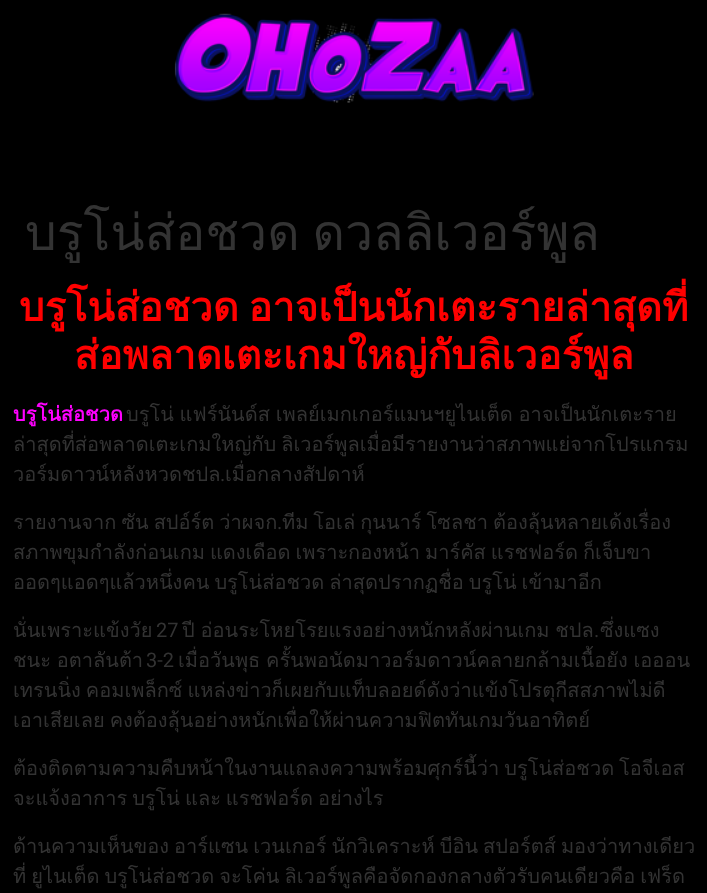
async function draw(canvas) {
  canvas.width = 707;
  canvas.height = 893;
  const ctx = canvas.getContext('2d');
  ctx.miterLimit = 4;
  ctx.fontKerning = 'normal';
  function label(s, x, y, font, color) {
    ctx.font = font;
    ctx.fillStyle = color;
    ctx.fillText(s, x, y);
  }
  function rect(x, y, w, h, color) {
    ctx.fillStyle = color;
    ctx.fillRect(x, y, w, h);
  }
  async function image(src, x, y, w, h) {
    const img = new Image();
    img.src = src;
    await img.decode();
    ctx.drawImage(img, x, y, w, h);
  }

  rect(0, 0, 707, 893, '#000');
  await image('assets/img1.png', 174, 13, 360, 90);
  ctx.wordSpacing = '-4px';
  label('บรูโน่ส่อชวด ดวลลิเวอร์พูล', 25, 250, '50px Loma', '#333');
  label('บรูโน่ส่อชวด อาจเป็นนักเตะรายล่าสุดที่', 19, 321, 'bold 40px Loma', '#f00');
  ctx.wordSpacing = '0px';
  label('ส่อพลาดเตะเกมใหญ่กับลิเวอร์พูล', 74, 369, 'bold 40px Loma', '#f00');
  label('บรูโน่ส่อชวด', 13, 421, 'bold 20px Loma', '#f0f');
  ctx.wordSpacing = '-1px';
  label('บรูโน่ แฟร์นันด์ส เพลย์เมกเกอร์แมนฯยูไนเต็ด อาจเป็นนักเตะราย', 126, 421, '20px Loma', '#333');
  ctx.wordSpacing = '-1.75px';
  label('ล่าสุดที่ส่อพลาดเตะเกมใหญ่กับ ลิเวอร์พูลเมื่อมีรายงานว่าสภาพแย่จากโปรแกรม', 13, 451, '20px Loma', '#333');
  ctx.wordSpacing = '0px';
  label('วอร์มดาวน์หลังหวดชปล', 13, 481, '20px Loma', '#333');
  label('.', 220, 481, '20px Roboto', '#333');
  label('เมื่อกลางสัปดาห์', 225, 481, '20px Loma', '#333');
  ctx.wordSpacing = '-1.75px';
  label('รายงานจาก ซัน สปอ์ร์ต ว่าผจก', 13, 529, '20px Loma', '#333');
  ctx.wordSpacing = '0px';
  label('.', 277, 529, '20px Roboto', '#333');
  ctx.wordSpacing = '-1.75px';
  label('ทีม โอเล่ กุนนาร์ โซลชา ต้องลุ้นหลายเด้งเรื่อง', 282, 529, '20px Loma', '#333');
  label('สภาพขุมกำลังก่อนเกม แดงเดือด เพราะกองหน้า มาร์คัส แรชฟอร์ด ก็เจ็บขา', 13, 559, '20px Loma', '#333');
  label('ออดๆแอดๆแล้วหนึ่งคน บรูโน่ส่อชวด ล่าสุดปรากฏชื่อ บรูโน่ เข้ามาอีก', 13, 589, '20px Loma', '#333');
  ctx.wordSpacing = '0px';
  label('นั่นเพราะแข้งวัย', 13, 637, '20px Loma', '#333');
  label('27', 156, 637, '20px Roboto', '#333');
  ctx.wordSpacing = '-1px';
  label('ปี อ่อนระโหยโรยแรงอย่างหนักหลังผ่านเกม ชปล', 182, 637, '20px Loma', '#333');
  ctx.wordSpacing = '0px';
  label('.', 594, 637, '20px Roboto', '#333');
  label('ซึ่งแซง', 600, 637, '20px Loma', '#333');
  ctx.wordSpacing = '-1px';
  label('ชนะ อตาลันต้า', 13, 667, '20px Loma', '#333');
  ctx.wordSpacing = '0px';
  label('3-2', 146, 667, '20px Roboto', '#333');
  ctx.wordSpacing = '-1px';
  label('เมื่อวันพุธ ครั้นพอนัดมาวอร์มดาวน์คลายกล้ามเนื้อยัง เอออน', 178, 667, '20px Loma', '#333');
  ctx.wordSpacing = '-1.75px';
  label('เทรนนิ่ง คอมเพล็กซ์ แหล่งข่าวก็เผยกับแท็บลอยด์ดังว่าแข้งโปรตุกีสสภาพไม่ดี', 13, 697, '20px Loma', '#333');
  label('เอาเสียเลย คงต้องลุ้นอย่างหนักเพื่อให้ผ่านความฟิตทันเกมวันอาทิตย์', 13, 727, '20px Loma', '#333');
  label('ต้องติดตามความคืบหน้าในงานแถลงความพร้อมศุกร์นี้ว่า บรูโน่ส่อชวด โอจีเอส', 13, 775, '20px Loma', '#333');
  label('จะแจ้งอาการ บรูโน่ และ แรชฟอร์ด อย่างไร', 13, 805, '20px Loma', '#333');
  label('ด้านความเห็นของ อาร์แซน เวนเกอร์ นักวิเคราะห์ บีอิน สปอร์ตส์ มองว่าทางเดียว', 13, 853, '20px Loma', '#333');
  label('ที่ ยูไนเต็ด บรูโน่ส่อชวด จะโค่น ลิเวอร์พูลคือจัดกองกลางตัวรับคนเดียวคือ เฟร็ด', 13, 883, '20px Loma', '#333');
}

draw(document.querySelector('canvas'));
